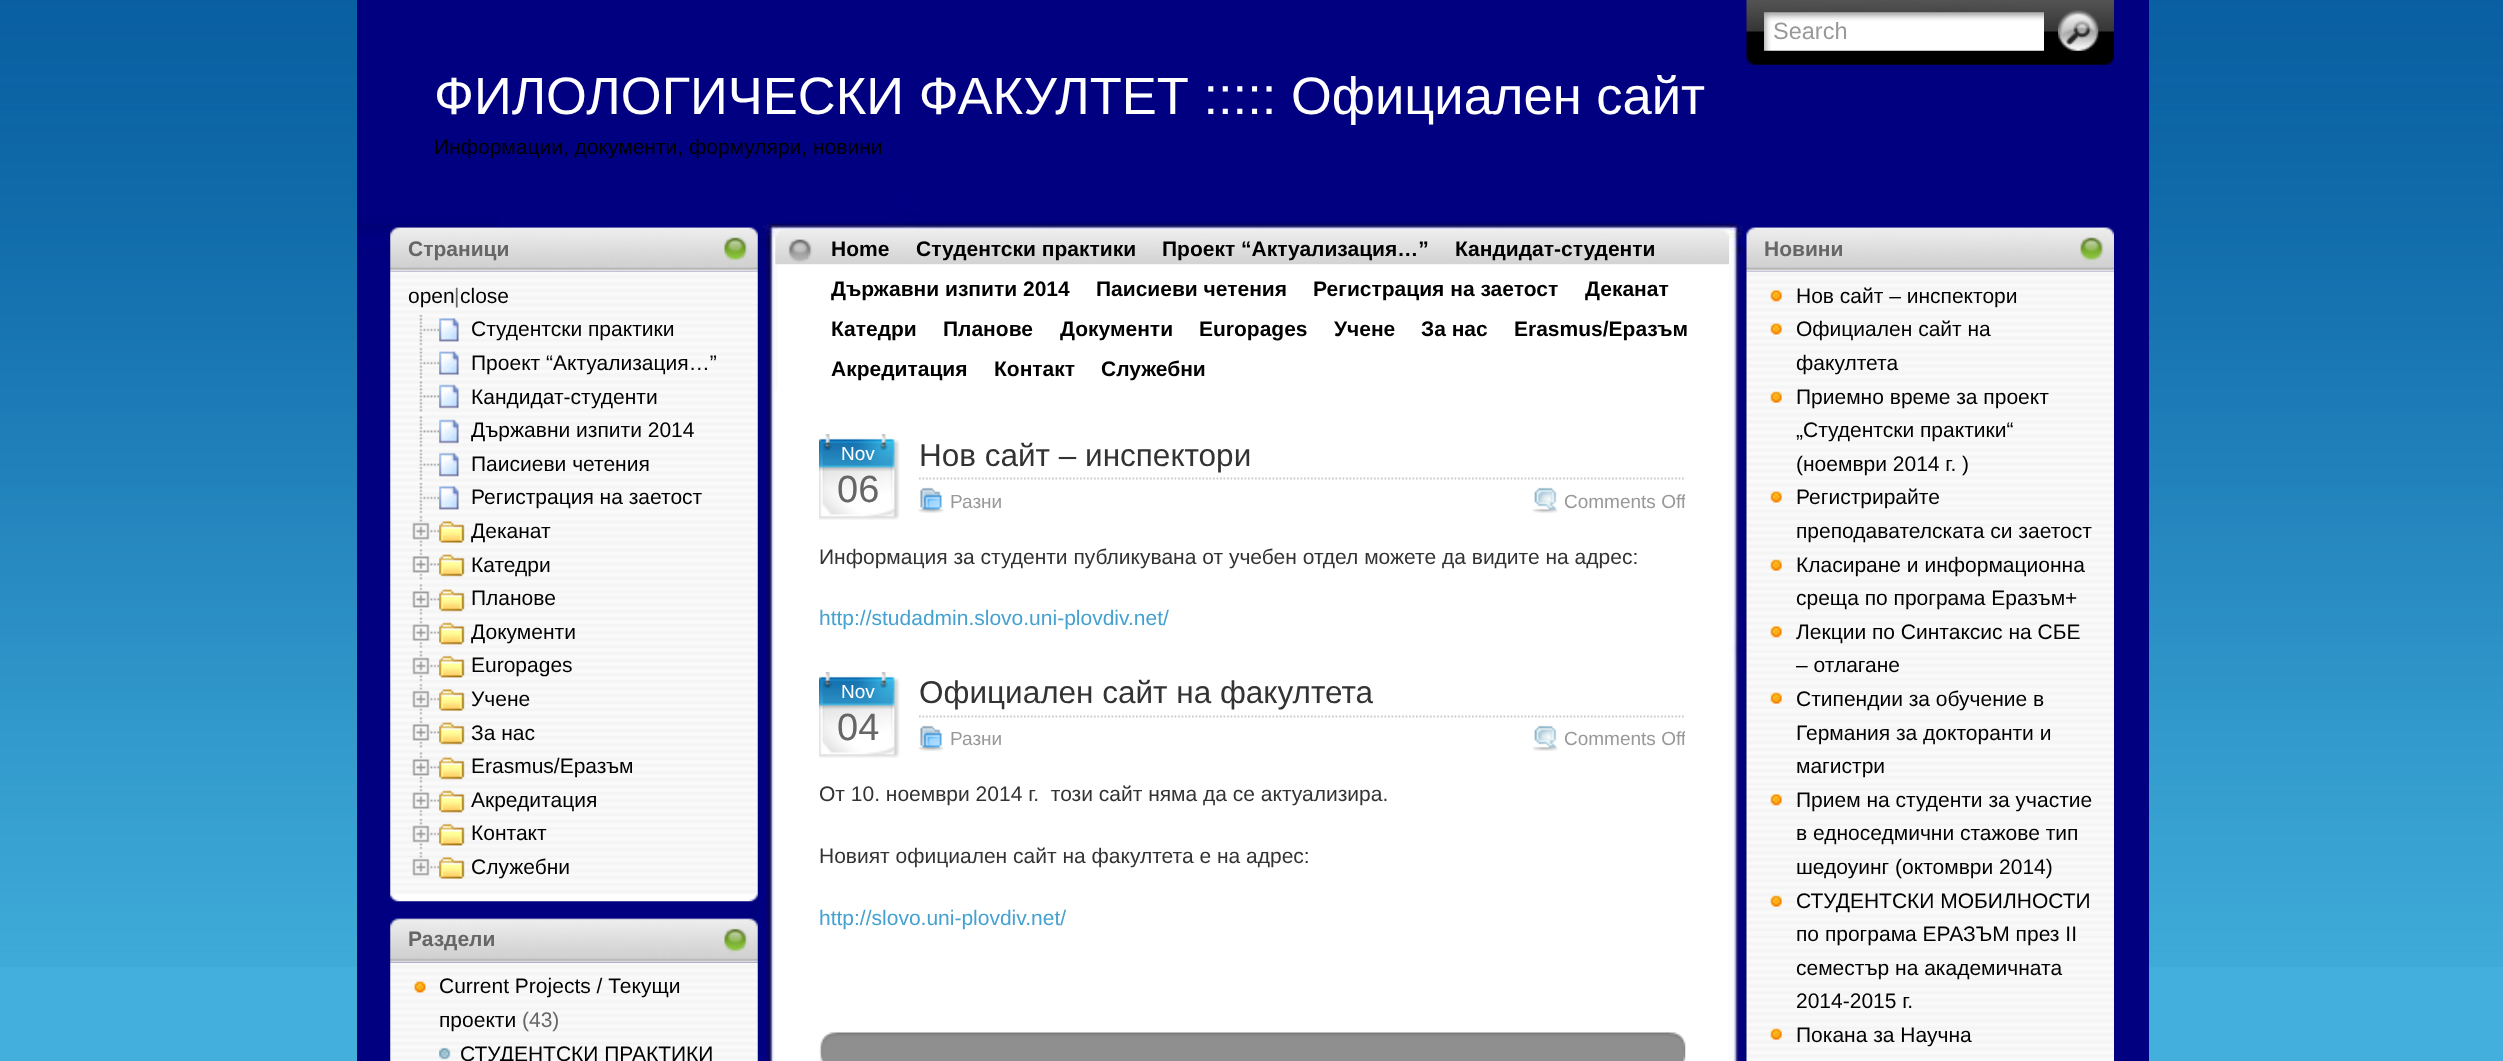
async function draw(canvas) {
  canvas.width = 2503;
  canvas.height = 1061;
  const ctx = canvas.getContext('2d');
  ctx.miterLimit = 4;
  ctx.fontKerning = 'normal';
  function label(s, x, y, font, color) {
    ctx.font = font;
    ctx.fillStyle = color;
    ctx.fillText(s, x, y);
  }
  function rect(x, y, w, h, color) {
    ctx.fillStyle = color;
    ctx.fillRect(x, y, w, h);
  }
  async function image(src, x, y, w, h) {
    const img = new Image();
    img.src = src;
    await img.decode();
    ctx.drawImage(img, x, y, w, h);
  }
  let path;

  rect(0, 0, 2503, 1061, '#42afdc');
  await image('assets/img1.png', 0, 0, 2503, 967);
  await image('assets/img2.png', 357, 0, 1792, 1061);
  await image('assets/img3.png', 1746, 0, 368, 65);
  await image('assets/img4.png', 1764, 12, 280, 39);
  label('Search', 1773, 39, '23.5px Liberation Sans', '#999');
  await image('assets/img5.png', 2058, 10, 41, 41);
  label('ФИЛОЛОГИЧЕСКИ ФАКУЛТЕТ ::::: Официален сайт', 434, 114, '52.5px Liberation Sans', '#fff');
  label('Информации, документи, формуляри, новини', 434, 154, '21px Liberation Sans', '#000');
  await image('assets/img8.png', 390, 271, 368, 631);
  await image('assets/img6.png', 390, 227, 368, 45);
  label('Страници', 408, 256, 'bold 21px Liberation Sans', '#666');
  await image('assets/img7.png', 724, 237, 24, 24);
  label('open', 408, 303, '21px Liberation Sans', '#000');
  label('|', 454, 303, '21px Liberation Sans', '#666');
  label('close', 460, 303, '21px Liberation Sans', '#000');
  await image('assets/img9.png', 419, 315, 21, 31);
  await image('assets/img10.png', 439, 318, 20, 24);
  label('Студентски практики', 471, 336, '21px Liberation Sans', '#000');
  await image('assets/img11.png', 419, 348, 21, 31);
  await image('assets/img12.png', 439, 351, 20, 24);
  label('Проект “Актуализация…”', 471, 370, '21px Liberation Sans', '#000');
  await image('assets/img13.png', 419, 381, 21, 31);
  await image('assets/img14.png', 439, 384, 20, 25);
  label('Кандидат-студенти', 471, 404, '21px Liberation Sans', '#000');
  await image('assets/img15.png', 419, 416, 21, 31);
  await image('assets/img16.png', 439, 419, 20, 25);
  label('Държавни изпити 2014', 471, 437, '21px Liberation Sans', '#000');
  await image('assets/img17.png', 419, 449, 21, 31);
  await image('assets/img18.png', 439, 452, 20, 25);
  label('Паисиеви четения', 471, 471, '21px Liberation Sans', '#000');
  await image('assets/img19.png', 419, 483, 21, 31);
  await image('assets/img20.png', 439, 486, 20, 24);
  label('Регистрация на заетост', 471, 504, '21px Liberation Sans', '#000');
  await image('assets/img21.png', 412, 516, 28, 31);
  await image('assets/img22.png', 439, 521, 26, 22);
  label('Деканат', 471, 538, '21px Liberation Sans', '#000');
  await image('assets/img23.png', 412, 549, 28, 31);
  await image('assets/img24.png', 439, 554, 26, 23);
  label('Катедри', 471, 572, '21px Liberation Sans', '#000');
  await image('assets/img25.png', 412, 584, 28, 31);
  await image('assets/img26.png', 439, 589, 26, 23);
  label('Планове', 471, 605, '21px Liberation Sans', '#000');
  await image('assets/img27.png', 412, 617, 28, 31);
  await image('assets/img28.png', 439, 622, 26, 23);
  label('Документи', 471, 639, '21px Liberation Sans', '#000');
  await image('assets/img29.png', 412, 651, 28, 31);
  await image('assets/img30.png', 439, 655, 26, 23);
  label('Europages', 471, 672, '21px Liberation Sans', '#000');
  await image('assets/img31.png', 412, 684, 28, 31);
  await image('assets/img32.png', 439, 689, 26, 22);
  label('Учене', 471, 706, '21px Liberation Sans', '#000');
  await image('assets/img33.png', 412, 717, 28, 31);
  await image('assets/img34.png', 439, 722, 26, 23);
  label('За нас', 471, 740, '21px Liberation Sans', '#000');
  await image('assets/img33.png', 412, 752, 28, 31);
  await image('assets/img34.png', 439, 757, 26, 23);
  label('Erasmus/Еразъм', 471, 773, '21px Liberation Sans', '#000');
  await image('assets/img27.png', 412, 785, 28, 31);
  await image('assets/img28.png', 439, 790, 26, 23);
  label('Акредитация', 471, 807, '21px Liberation Sans', '#000');
  await image('assets/img35.png', 412, 819, 28, 31);
  await image('assets/img36.png', 439, 823, 26, 23);
  label('Контакт', 471, 840, '21px Liberation Sans', '#000');
  await image('assets/img37.png', 412, 852, 28, 24);
  await image('assets/img38.png', 439, 857, 26, 22);
  label('Служебни', 471, 874, '21px Liberation Sans', '#000');
  await image('assets/img41.png', 390, 962, 368, 99);
  await image('assets/img39.png', 390, 918, 368, 45);
  label('Раздели', 408, 946, 'bold 21px Liberation Sans', '#666');
  await image('assets/img40.png', 724, 928, 24, 25);
  await image('assets/img42.png', 414, 981, 12, 12);
  label('Current Projects / Текущи', 439, 993, '21px Liberation Sans', '#000');
  label('проекти', 439, 1027, '21px Liberation Sans', '#000');
  label('(43)', 522, 1027, '21px Liberation Sans', '#666');
  await image('assets/img43.png', 439, 1047, 12, 13);
  label('СТУДЕНТСКИ ПРАКТИКИ', 460, 1061, '21px Liberation Sans', '#000');
  await image('assets/img44.png', 775, 229, 954, 36);
  label('Home', 831, 256, 'bold 21px Liberation Sans', '#000');
  label('Студентски практики', 916, 256, 'bold 21px Liberation Sans', '#000');
  label('Проект “Актуализация…”', 1162, 256, 'bold 21px Liberation Sans', '#000');
  label('Кандидат-студенти', 1455, 256, 'bold 21px Liberation Sans', '#000');
  label('Държавни изпити 2014', 831, 296, 'bold 21px Liberation Sans', '#000');
  label('Паисиеви четения', 1096, 296, 'bold 21px Liberation Sans', '#000');
  label('Регистрация на заетост', 1313, 296, 'bold 21px Liberation Sans', '#000');
  label('Деканат', 1585, 296, 'bold 21px Liberation Sans', '#000');
  label('Катедри', 831, 336, 'bold 21px Liberation Sans', '#000');
  label('Планове', 943, 336, 'bold 21px Liberation Sans', '#000');
  label('Документи', 1060, 336, 'bold 21px Liberation Sans', '#000');
  label('Europages', 1199, 336, 'bold 21px Liberation Sans', '#000');
  label('Учене', 1334, 336, 'bold 21px Liberation Sans', '#000');
  label('За нас', 1421, 336, 'bold 21px Liberation Sans', '#000');
  label('Erasmus/Еразъм', 1514, 336, 'bold 21px Liberation Sans', '#000');
  label('Акредитация', 831, 376, 'bold 21px Liberation Sans', '#000');
  label('Контакт', 994, 376, 'bold 21px Liberation Sans', '#000');
  label('Служебни', 1101, 376, 'bold 21px Liberation Sans', '#000');
  rect(775, 390, 899, 671, '#fff');
  await image('assets/img45.png', 819, 434, 81, 86);
  label('Nov', 841, 460, '19px Liberation Sans', '#fff');
  label('06', 837, 502, '38px Liberation Sans', '#666');
  path = new Path2D('M919 478.5H1685');
  ctx.strokeStyle = '#ccc';
  ctx.lineWidth = 1.8;
  ctx.setLineDash([1.75, 1.75]);
  ctx.stroke(path);
  label('Нов сайт – инспектори', 919, 466, '31.5px Liberation Sans', '#333');
  await image('assets/img46.png', 918, 487, 26, 26);
  label('Разни', 950, 508, '19px Liberation Sans', '#999');
  await image('assets/img47.png', 1533, 487, 25, 26);
  ctx.save();
  ctx.beginPath();
  ctx.rect(819, 434, 866, 238);
  ctx.clip();
  label('Comments Off', 1564, 508, '19px Liberation Sans', '#999');
  ctx.restore();
  label('Информация за студенти публикувана от учебен отдел можете да видите на адрес:', 819, 564, '21px Liberation Sans', '#333');
  label('http://studadmin.slovo.uni-plovdiv.net/', 819, 625, '21px Liberation Sans', '#44a1d0');
  await image('assets/img45.png', 819, 672, 81, 86);
  label('Nov', 841, 698, '19px Liberation Sans', '#fff');
  label('04', 837, 740, '38px Liberation Sans', '#666');
  path = new Path2D('M919 716.5H1685');
  ctx.stroke(path);
  label('Официален сайт на факултета', 919, 703, '31.5px Liberation Sans', '#333');
  await image('assets/img46.png', 918, 725, 26, 26);
  label('Разни', 950, 745, '19px Liberation Sans', '#999');
  await image('assets/img47.png', 1533, 725, 25, 26);
  ctx.save();
  ctx.beginPath();
  ctx.rect(819, 672, 866, 361);
  ctx.clip();
  label('Comments Off', 1564, 745, '19px Liberation Sans', '#999');
  ctx.restore();
  label('От 10. ноември 2014 г.  този сайт няма да се актуализира.', 819, 801, '21px Liberation Sans', '#333');
  label('Новият официален сайт на факултета е на адрес:', 819, 863, '21px Liberation Sans', '#333');
  label('http://slovo.uni-plovdiv.net/', 819, 925, '21px Liberation Sans', '#44a1d0');
  await image('assets/img48.png', 819, 1032, 867, 29);
  await image('assets/img51.png', 1746, 271, 368, 790);
  await image('assets/img49.png', 1746, 227, 368, 45);
  label('Новини', 1764, 256, 'bold 21px Liberation Sans', '#666');
  await image('assets/img50.png', 2080, 237, 24, 24);
  await image('assets/img52.png', 1770, 290, 12, 12);
  label('Нов сайт – инспектори', 1796, 303, '21px Liberation Sans', '#000');
  await image('assets/img53.png', 1770, 323, 12, 12);
  label('Официален сайт на', 1796, 336, '21px Liberation Sans', '#000');
  label('факултета', 1796, 370, '21px Liberation Sans', '#000');
  await image('assets/img54.png', 1770, 391, 12, 12);
  label('Приемно време за проект', 1796, 404, '21px Liberation Sans', '#000');
  label('„Студентски практики“', 1796, 437, '21px Liberation Sans', '#000');
  label('(ноември 2014 г. )', 1796, 471, '21px Liberation Sans', '#000');
  await image('assets/img55.png', 1770, 491, 12, 12);
  label('Регистрирайте', 1796, 504, '21px Liberation Sans', '#000');
  label('преподавателската си заетост', 1796, 538, '21px Liberation Sans', '#000');
  await image('assets/img56.png', 1770, 559, 12, 12);
  label('Класиране и информационна', 1796, 572, '21px Liberation Sans', '#000');
  label('среща по програма Еразъм+', 1796, 605, '21px Liberation Sans', '#000');
  await image('assets/img57.png', 1770, 626, 12, 12);
  label('Лекции по Синтаксис на СБЕ', 1796, 639, '21px Liberation Sans', '#000');
  label('– отлагане', 1796, 672, '21px Liberation Sans', '#000');
  await image('assets/img58.png', 1770, 692, 12, 12);
  label('Стипендии за обучение в', 1796, 706, '21px Liberation Sans', '#000');
  label('Германия за докторанти и', 1796, 740, '21px Liberation Sans', '#000');
  label('магистри', 1796, 773, '21px Liberation Sans', '#000');
  await image('assets/img59.png', 1770, 794, 12, 12);
  label('Прием на студенти за участие', 1796, 807, '21px Liberation Sans', '#000');
  label('в едноседмични стажове тип', 1796, 840, '21px Liberation Sans', '#000');
  label('шедоуинг (октомври 2014)', 1796, 874, '21px Liberation Sans', '#000');
  await image('assets/img60.png', 1770, 895, 12, 12);
  label('СТУДЕНТСКИ МОБИЛНОСТИ', 1796, 908, '21px Liberation Sans', '#000');
  label('по програма ЕРАЗЪМ през II', 1796, 941, '21px Liberation Sans', '#000');
  label('семестър на академичната', 1796, 975, '21px Liberation Sans', '#000');
  label('2014-2015 г.', 1796, 1008, '21px Liberation Sans', '#000');
  await image('assets/img61.png', 1770, 1028, 12, 12);
  label('Покана за Научна', 1796, 1042, '21px Liberation Sans', '#000');
}

draw(document.querySelector('canvas'));
